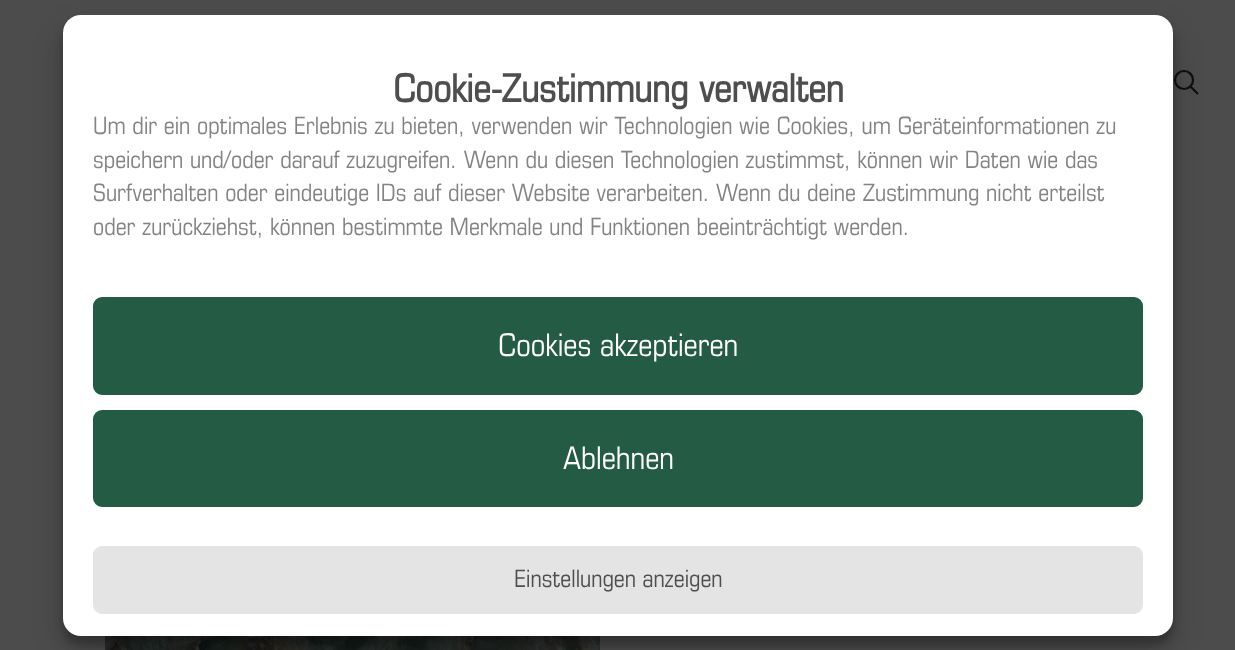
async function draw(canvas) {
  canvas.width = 1235;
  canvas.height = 650;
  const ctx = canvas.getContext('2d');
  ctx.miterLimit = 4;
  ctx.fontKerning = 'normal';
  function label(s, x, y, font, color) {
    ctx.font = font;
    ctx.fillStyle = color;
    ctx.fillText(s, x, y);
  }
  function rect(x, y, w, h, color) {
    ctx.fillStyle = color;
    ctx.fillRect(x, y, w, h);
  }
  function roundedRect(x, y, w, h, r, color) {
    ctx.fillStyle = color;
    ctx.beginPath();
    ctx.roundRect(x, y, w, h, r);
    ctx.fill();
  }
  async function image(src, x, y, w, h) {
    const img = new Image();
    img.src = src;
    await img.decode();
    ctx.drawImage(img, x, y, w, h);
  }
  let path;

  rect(0, 0, 1235, 650, '#4c4c4c');
  ctx.beginPath();
  ctx.arc(1184, 80, 9, 0, 2 * Math.PI);
  ctx.strokeStyle = '#0f0f0f';
  ctx.lineWidth = 2.2;
  ctx.stroke();
  path = new Path2D('M1190.5 86.5L1198 94');
  ctx.stroke(path);
  await image('assets/img1.png', 105, 636, 495, 14);
  ctx.fillStyle = '#0000003b';
  ctx.filter = 'blur(4.5px)';
  ctx.beginPath();
  ctx.roundRect(63, 24, 1110, 621, 18);
  ctx.fill();
  ctx.filter = 'none';
  ctx.fillStyle = '#00000030';
  ctx.filter = 'blur(15px)';
  ctx.beginPath();
  ctx.roundRect(63, 30, 1110, 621, 18);
  ctx.fill();
  ctx.filter = 'none';
  roundedRect(63, 15, 1110, 621, 18, '#fff');
  label('Cookie-Zustimmung verwalten', 393, 102, 'bold 38.4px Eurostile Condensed', '#4e4e4e');
  label('Um dir ein optimales Erlebnis zu bieten, verwenden wir Technologien wie Cookies, um Geräteinformationen zu', 93, 134, '24px Eurostile Condensed', '#838383');
  label('speichern und/oder darauf zuzugreifen. Wenn du diesen Technologien zustimmst, können wir Daten wie das', 93, 168, '24px Eurostile Condensed', '#838383');
  label('Surfverhalten oder eindeutige IDs auf dieser Website verarbeiten. Wenn du deine Zustimmung nicht erteilst', 93, 201, '24px Eurostile Condensed', '#838383');
  label('oder zurückziehst, können bestimmte Merkmale und Funktionen beeinträchtigt werden.', 93, 235, '24px Eurostile Condensed', '#838383');
  ctx.fillStyle = '#245b44';
  ctx.beginPath();
  ctx.roundRect(94, 298, 1048, 96, 8);
  ctx.fill();
  ctx.strokeStyle = '#245b44';
  ctx.lineWidth = 2;
  ctx.stroke();
  label('Cookies akzeptieren', 498, 356, '31.25px Eurostile Condensed', '#fff');
  ctx.fillStyle = '#245b44';
  ctx.beginPath();
  ctx.roundRect(94, 411, 1048, 95, 8);
  ctx.fill();
  ctx.stroke();
  label('Ablehnen', 563, 469, '31.25px Eurostile Condensed', '#fff');
  ctx.fillStyle = '#e4e4e4';
  ctx.beginPath();
  ctx.roundRect(94, 547, 1048, 66, 8);
  ctx.fill();
  ctx.strokeStyle = '#e4e4e4';
  ctx.stroke();
  label('Einstellungen anzeigen', 514, 587, '24px Eurostile Condensed', '#4e4e4e');
}

draw(document.querySelector('canvas'));
